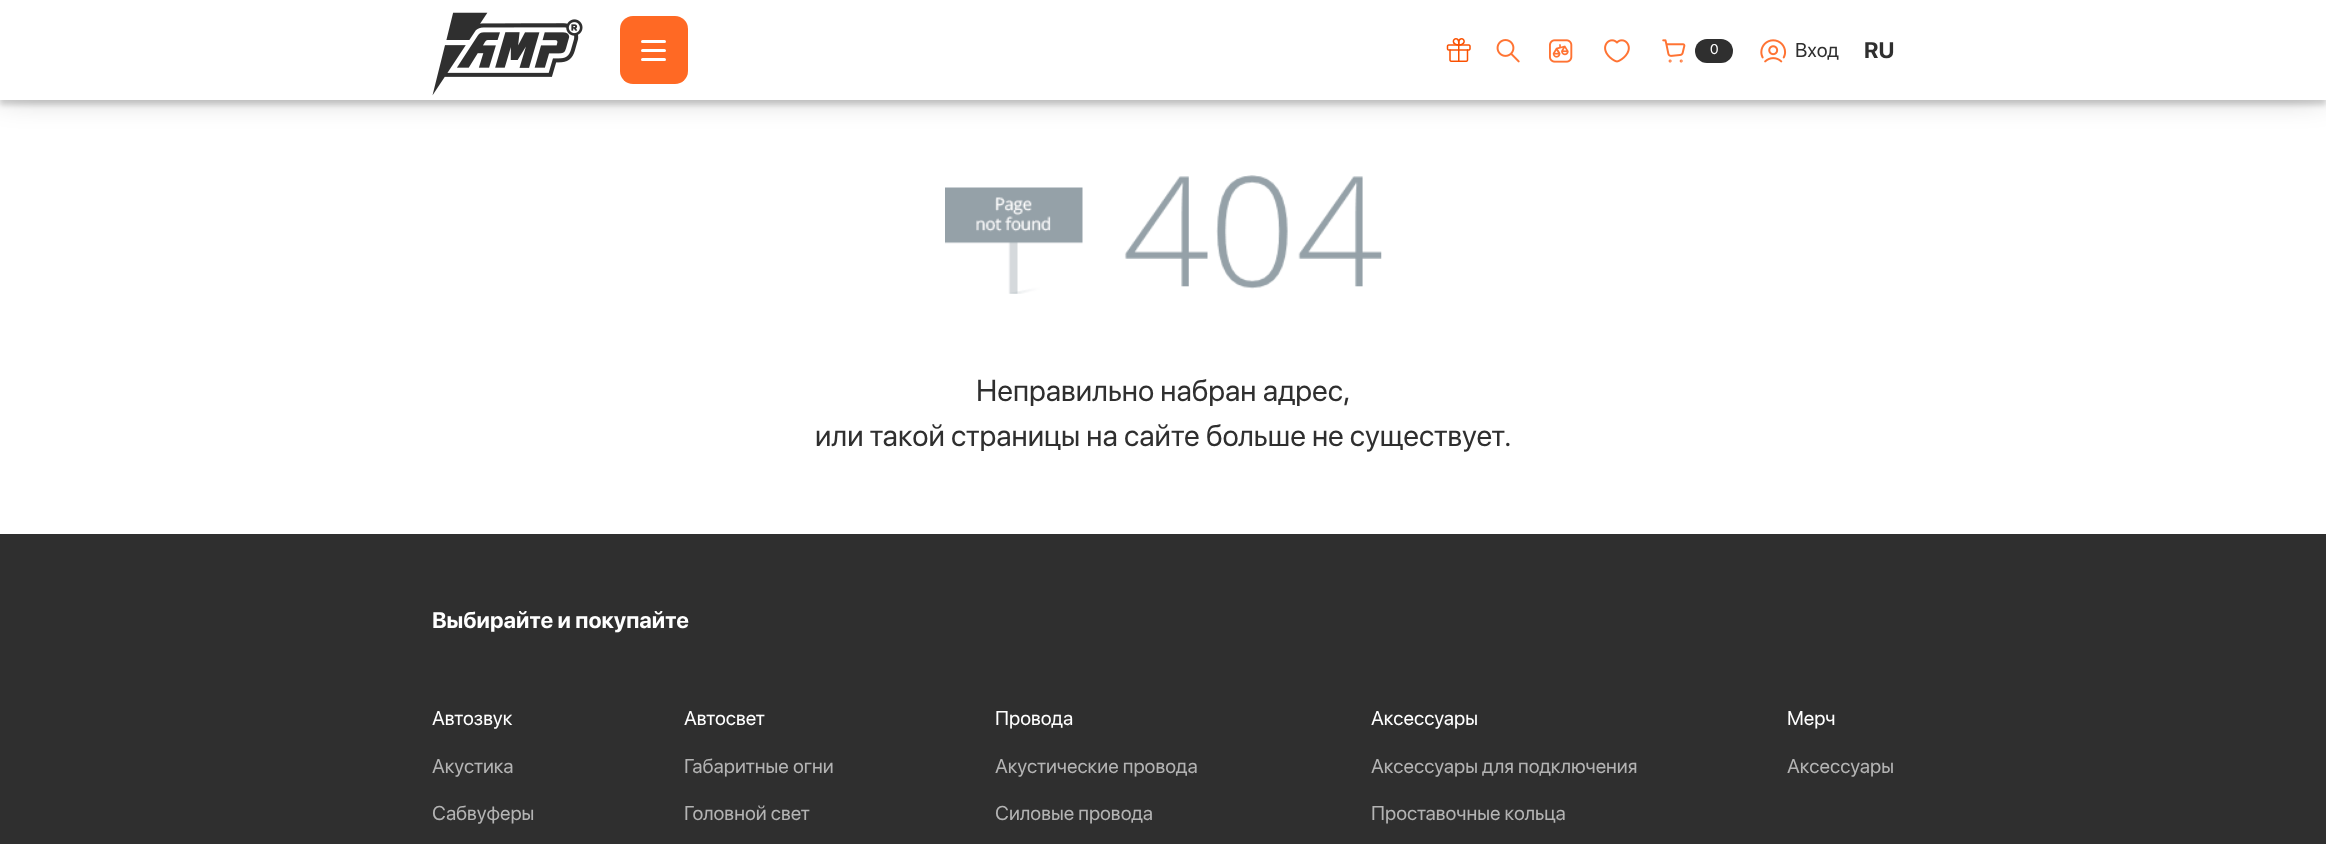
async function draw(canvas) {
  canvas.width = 2326;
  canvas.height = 844;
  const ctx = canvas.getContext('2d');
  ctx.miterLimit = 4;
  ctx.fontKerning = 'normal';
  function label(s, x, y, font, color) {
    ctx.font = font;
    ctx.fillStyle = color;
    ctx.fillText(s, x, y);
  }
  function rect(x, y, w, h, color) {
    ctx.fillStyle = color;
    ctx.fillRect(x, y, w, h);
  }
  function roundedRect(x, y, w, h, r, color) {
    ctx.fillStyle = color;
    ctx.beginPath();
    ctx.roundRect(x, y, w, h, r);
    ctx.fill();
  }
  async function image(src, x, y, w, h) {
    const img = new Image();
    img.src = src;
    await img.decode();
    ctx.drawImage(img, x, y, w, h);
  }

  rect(0, 0, 2326, 844, '#fff');
  ctx.fillStyle = '#00000026';
  ctx.filter = 'blur(2.5px)';
  ctx.beginPath();
  ctx.rect(0, 5, 2326, 100);
  ctx.fill();
  ctx.filter = 'none';
  ctx.fillStyle = '#00000059';
  ctx.filter = 'blur(17px)';
  ctx.beginPath();
  ctx.rect(0, -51, 2326, 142);
  ctx.fill();
  ctx.filter = 'none';
  rect(0, 0, 2326, 100, '#fff');
  await image('assets/img1.png', 432, 12, 151, 84);
  roundedRect(620, 16, 68, 68, 13, '#ff6924');
  roundedRect(641, 40, 25, 3, 1.5, '#fff');
  roundedRect(641, 49, 25, 3, 1.5, '#fff');
  roundedRect(641, 58, 25, 3, 1.5, '#fff');
  await image('assets/img2.png', 1446, 38, 25, 24);
  await image('assets/img3.png', 1496, 39, 24, 24);
  await image('assets/img4.png', 1549, 39, 24, 24);
  await image('assets/img5.png', 1604, 39, 26, 24);
  await image('assets/img6.png', 1662, 39, 24, 24);
  roundedRect(1695, 39, 38, 24, 12, '#2f2f2f');
  label('0', 1710, 54, '14px SF Pro Display', '#fff');
  await image('assets/img7.png', 1760, 39, 27, 24);
  label('Вход', 1795, 57, '20px SF Pro Display', '#2f2f2f');
  label('RU', 1864, 58, 'bold 22.5px SF Pro Display', '#2f2f2f');
  await image('assets/img8.png', 945, 175, 437, 119);
  label('Неправильно набран адрес,', 976, 401, '30px SF Pro Display', '#2f2f2f');
  label('или такой страницы на сайте больше не существует.', 815, 446, '30px SF Pro Display', '#2f2f2f');
  rect(0, 534, 2326, 310, '#2f2f2f');
  label('Выбирайте и покупайте', 432, 628, 'bold 22.5px SF Pro Display', '#fff');
  label('Автозвук', 432, 725, '20px SF Pro Display', '#fff');
  label('Акустика', 432, 773, '20px SF Pro Display', '#b3b3b3');
  label('Сабвуферы', 432, 820, '20px SF Pro Display', '#b3b3b3');
  label('Автосвет', 684, 725, '20px SF Pro Display', '#fff');
  label('Габаритные огни', 684, 773, '20px SF Pro Display', '#b3b3b3');
  label('Головной свет', 684, 820, '20px SF Pro Display', '#b3b3b3');
  label('Провода', 995, 725, '20px SF Pro Display', '#fff');
  label('Акустические провода', 995, 773, '20px SF Pro Display', '#b3b3b3');
  label('Силовые провода', 995, 820, '20px SF Pro Display', '#b3b3b3');
  label('Аксессуары', 1371, 725, '20px SF Pro Display', '#fff');
  label('Аксессуары для подключения', 1371, 773, '20px SF Pro Display', '#b3b3b3');
  label('Проставочные кольца', 1371, 820, '20px SF Pro Display', '#b3b3b3');
  label('Мерч', 1787, 725, '20px SF Pro Display', '#fff');
  label('Аксессуары', 1787, 773, '20px SF Pro Display', '#b3b3b3');
}

draw(document.querySelector('canvas'));
